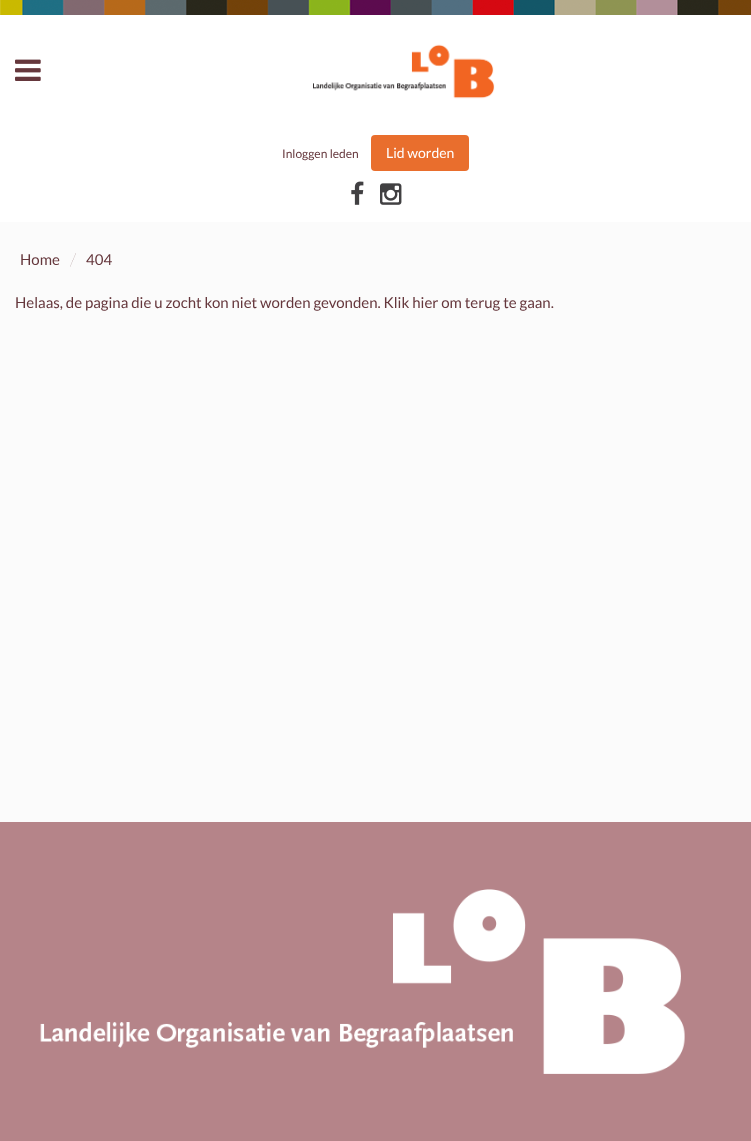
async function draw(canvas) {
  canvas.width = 751;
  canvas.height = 1141;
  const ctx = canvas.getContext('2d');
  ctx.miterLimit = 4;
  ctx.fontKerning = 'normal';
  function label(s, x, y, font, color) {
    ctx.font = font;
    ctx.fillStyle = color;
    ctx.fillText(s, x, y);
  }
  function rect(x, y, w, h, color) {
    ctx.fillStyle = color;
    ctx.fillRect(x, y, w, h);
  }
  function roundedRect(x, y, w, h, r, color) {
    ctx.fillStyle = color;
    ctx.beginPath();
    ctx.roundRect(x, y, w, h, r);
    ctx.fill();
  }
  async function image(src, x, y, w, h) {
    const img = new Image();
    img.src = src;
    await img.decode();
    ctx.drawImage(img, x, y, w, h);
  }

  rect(0, 0, 751, 1141, '#fff');
  await image('assets/img1.png', 0, 0, 751, 15);
  await image('assets/img2.png', 15, 59, 26, 22);
  await image('assets/img3.png', 313, 44, 182, 55);
  label('Inloggen leden', 282, 158, '12px Lato', '#65373c');
  roundedRect(371, 135, 98, 36, 4, '#e96e2d');
  label('Lid worden', 386, 158, '14px Lato', '#fff');
  await image('assets/img4.png', 351, 181, 13, 24);
  await image('assets/img5.png', 380, 183, 22, 22);
  rect(0, 222, 751, 600, '#fbfbfb');
  label('Home', 20, 265, '15px Lato', '#65373c');
  label('/', 70, 266, '100 18px Lato', '#65373c');
  label('404', 86, 265, '15px Lato', '#65373c');
  label('Helaas, de pagina die u zocht kon niet worden gevonden. Klik hier om terug te gaan.', 15, 308, '15px Lato', '#65373c');
  rect(0, 822, 751, 319, '#b58489');
  await image('assets/img6.png', 40, 889, 645, 185);
}

draw(document.querySelector('canvas'));
